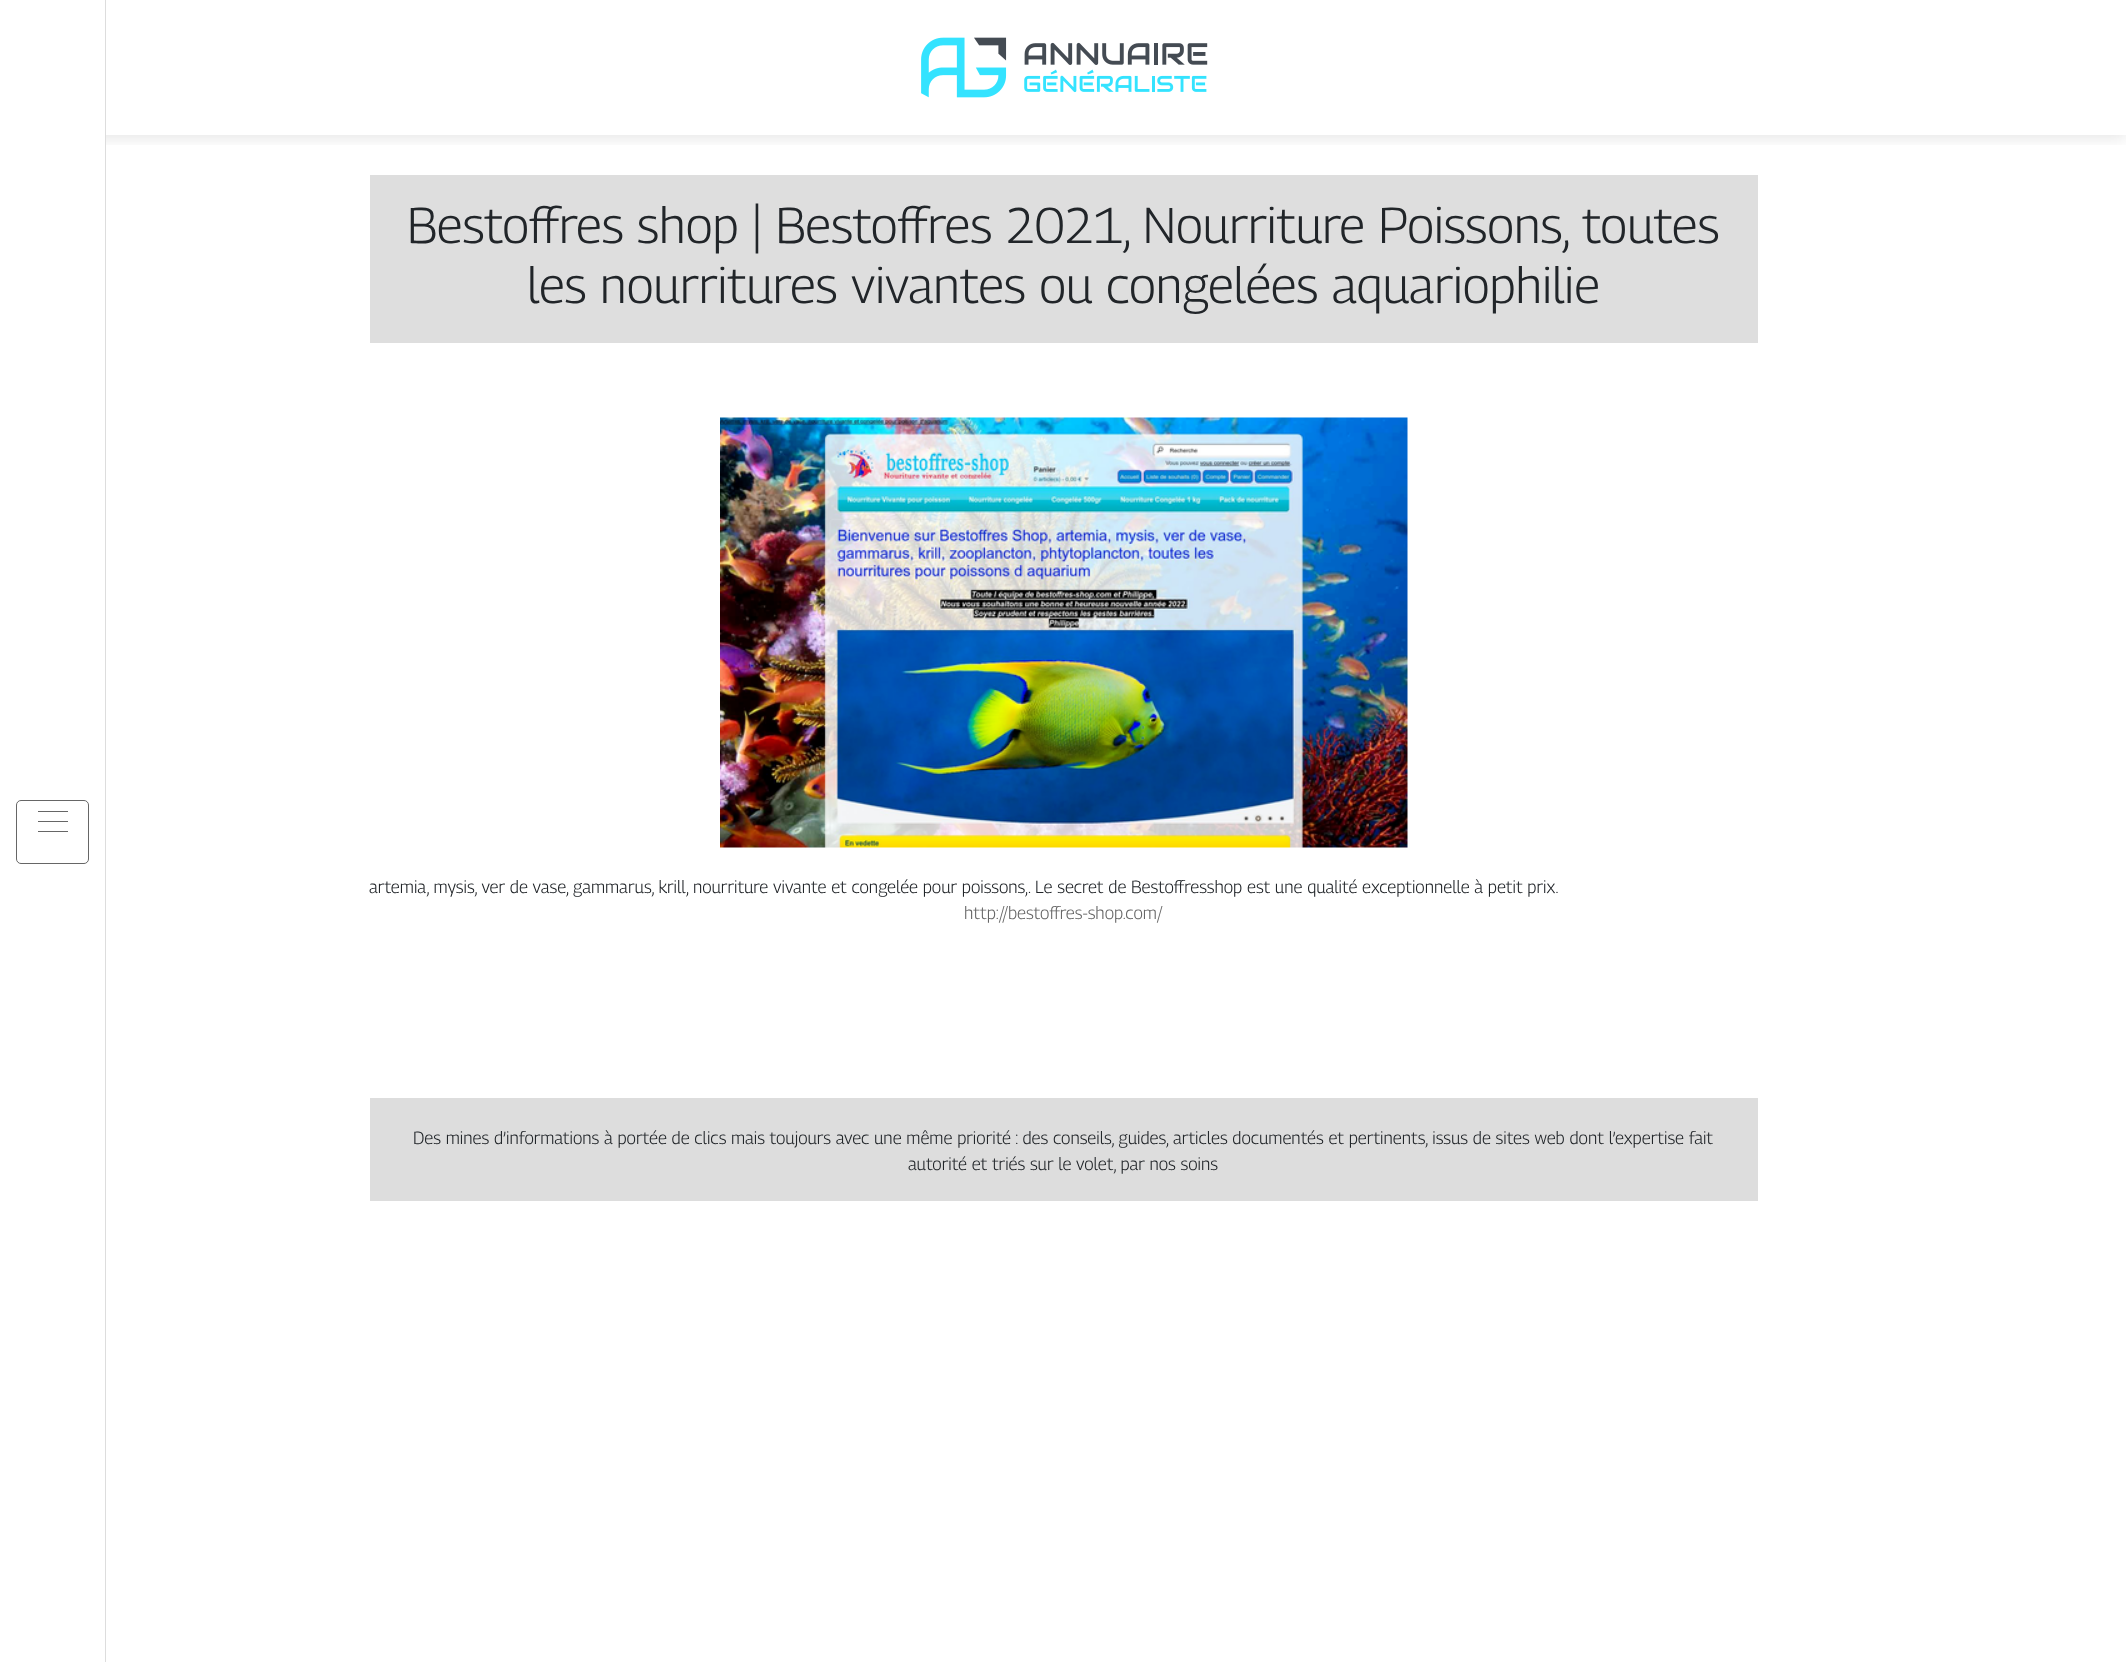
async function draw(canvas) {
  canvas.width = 2126;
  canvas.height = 1662;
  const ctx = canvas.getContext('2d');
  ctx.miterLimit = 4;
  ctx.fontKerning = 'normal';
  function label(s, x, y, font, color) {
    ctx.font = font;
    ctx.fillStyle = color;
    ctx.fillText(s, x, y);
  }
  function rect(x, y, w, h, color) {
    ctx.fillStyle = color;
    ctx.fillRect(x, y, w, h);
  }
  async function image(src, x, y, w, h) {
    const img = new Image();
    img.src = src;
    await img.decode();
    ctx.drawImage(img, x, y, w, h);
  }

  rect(0, 0, 2126, 1662, '#fff');
  ctx.save();
  ctx.beginPath();
  ctx.rect(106, 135, 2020, 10);
  ctx.clip();
  ctx.fillStyle = '#0000001a';
  ctx.filter = 'blur(8px)';
  ctx.beginPath();
  ctx.rect(0, 3, 2126, 135);
  ctx.fill();
  ctx.filter = 'none';
  ctx.restore();
  rect(0, 135, 105, 13, '#fff');
  rect(105, 0, 1, 1662, '#ddd');
  ctx.beginPath();
  ctx.roundRect(16.5, 800.5, 72, 63, 4.5);
  ctx.strokeStyle = '#666';
  ctx.stroke();
  rect(38, 811, 30, 1, '#666');
  rect(38, 821, 30, 1, '#666');
  rect(38, 831, 30, 1, '#666');
  await image('assets/img1.png', 921, 37, 287, 61);
  rect(370, 175, 1388, 168, '#dedede');
  label('Bestoffres shop | Bestoffres 2021, Nourriture Poissons, toutes', 407, 243, '100 50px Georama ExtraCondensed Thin', '#212529');
  label('les nourritures vivantes ou congelées aquariophilie', 527, 303, '100 50px Georama ExtraCondensed Thin', '#212529');
  await image('assets/img2.png', 720, 417, 688, 431);
  label('artemia, mysis, ver de vase, gammarus, krill, nourriture vivante et congelée pour poissons,. Le secret de Bestoffresshop est une qualité exceptionnelle à petit prix.', 369, 893, '100 17.5px Georama ExtraCondensed Thin', '#212529');
  label('http://bestoffres-shop.com/', 964, 919, '100 17.5px Georama ExtraCondensed Thin', '#666');
  rect(370, 1098, 1388, 103, '#ddd');
  label('Des mines d’informations à portée de clics mais toujours avec une même priorité : des conseils, guides, articles documentés et pertinents, issus de sites web dont l’expertise fait', 413, 1144, '100 17.5px Georama ExtraCondensed Thin', '#212529');
  label('autorité et triés sur le volet, par nos soins', 908, 1170, '100 17.5px Georama ExtraCondensed Thin', '#212529');
}

draw(document.querySelector('canvas'));
